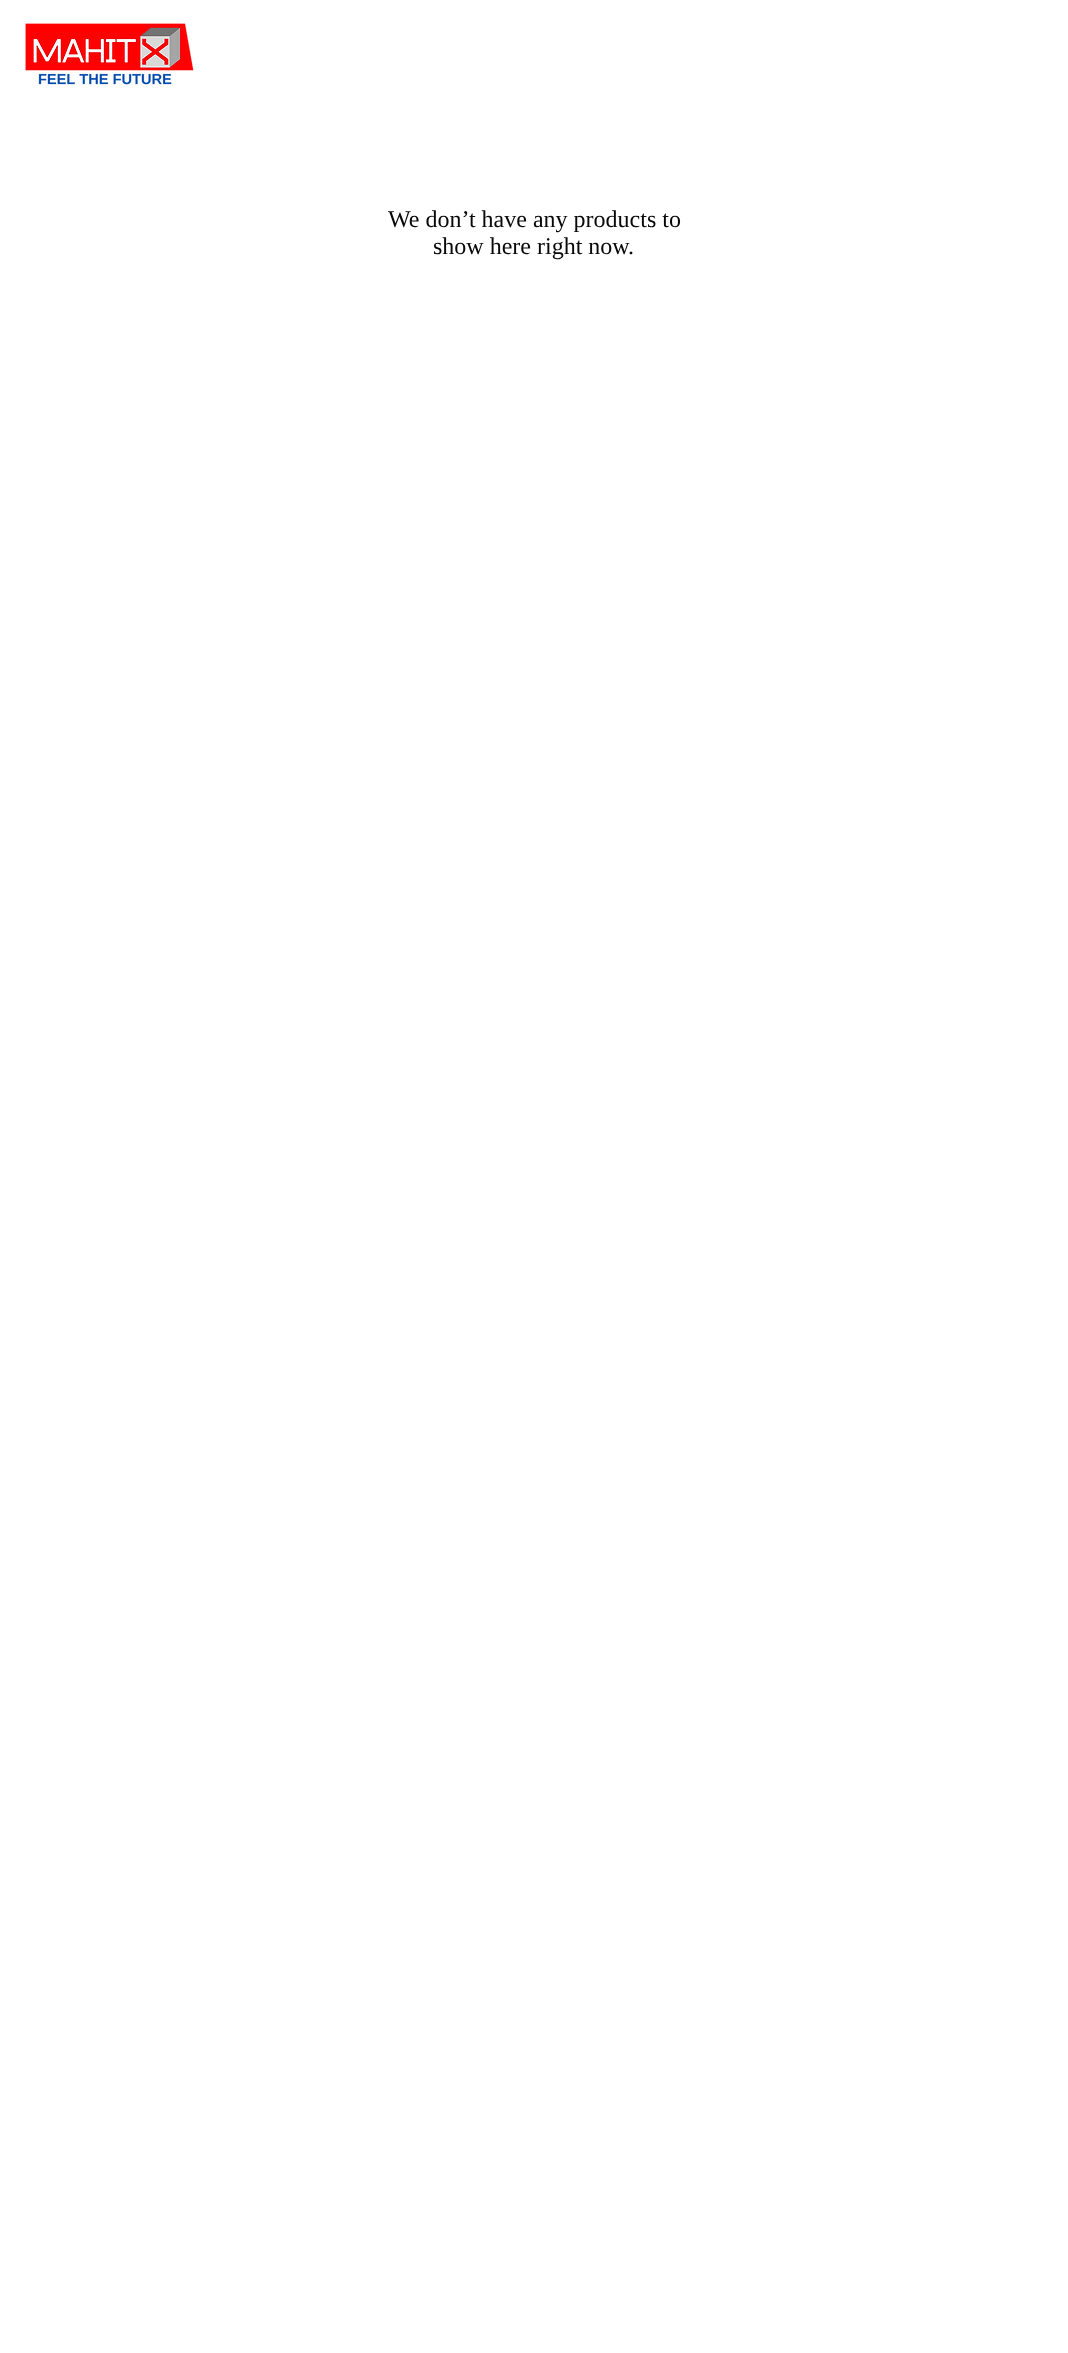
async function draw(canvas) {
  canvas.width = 1068;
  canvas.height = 2353;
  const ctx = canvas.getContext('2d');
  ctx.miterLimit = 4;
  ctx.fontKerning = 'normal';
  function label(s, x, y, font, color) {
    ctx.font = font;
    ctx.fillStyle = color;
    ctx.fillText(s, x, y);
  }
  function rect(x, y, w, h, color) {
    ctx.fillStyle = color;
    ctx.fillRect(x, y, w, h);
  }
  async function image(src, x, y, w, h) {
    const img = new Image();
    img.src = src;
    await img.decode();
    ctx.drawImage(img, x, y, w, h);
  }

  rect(0, 0, 1068, 2353, '#fff');
  await image('assets/img1.png', 25, 23, 169, 62);
  label('We don’t have any products to', 388, 227, '24px Liberation Serif', '#080808');
  label('show here right now.', 433, 254, '24px Liberation Serif', '#080808');
}

draw(document.querySelector('canvas'));
